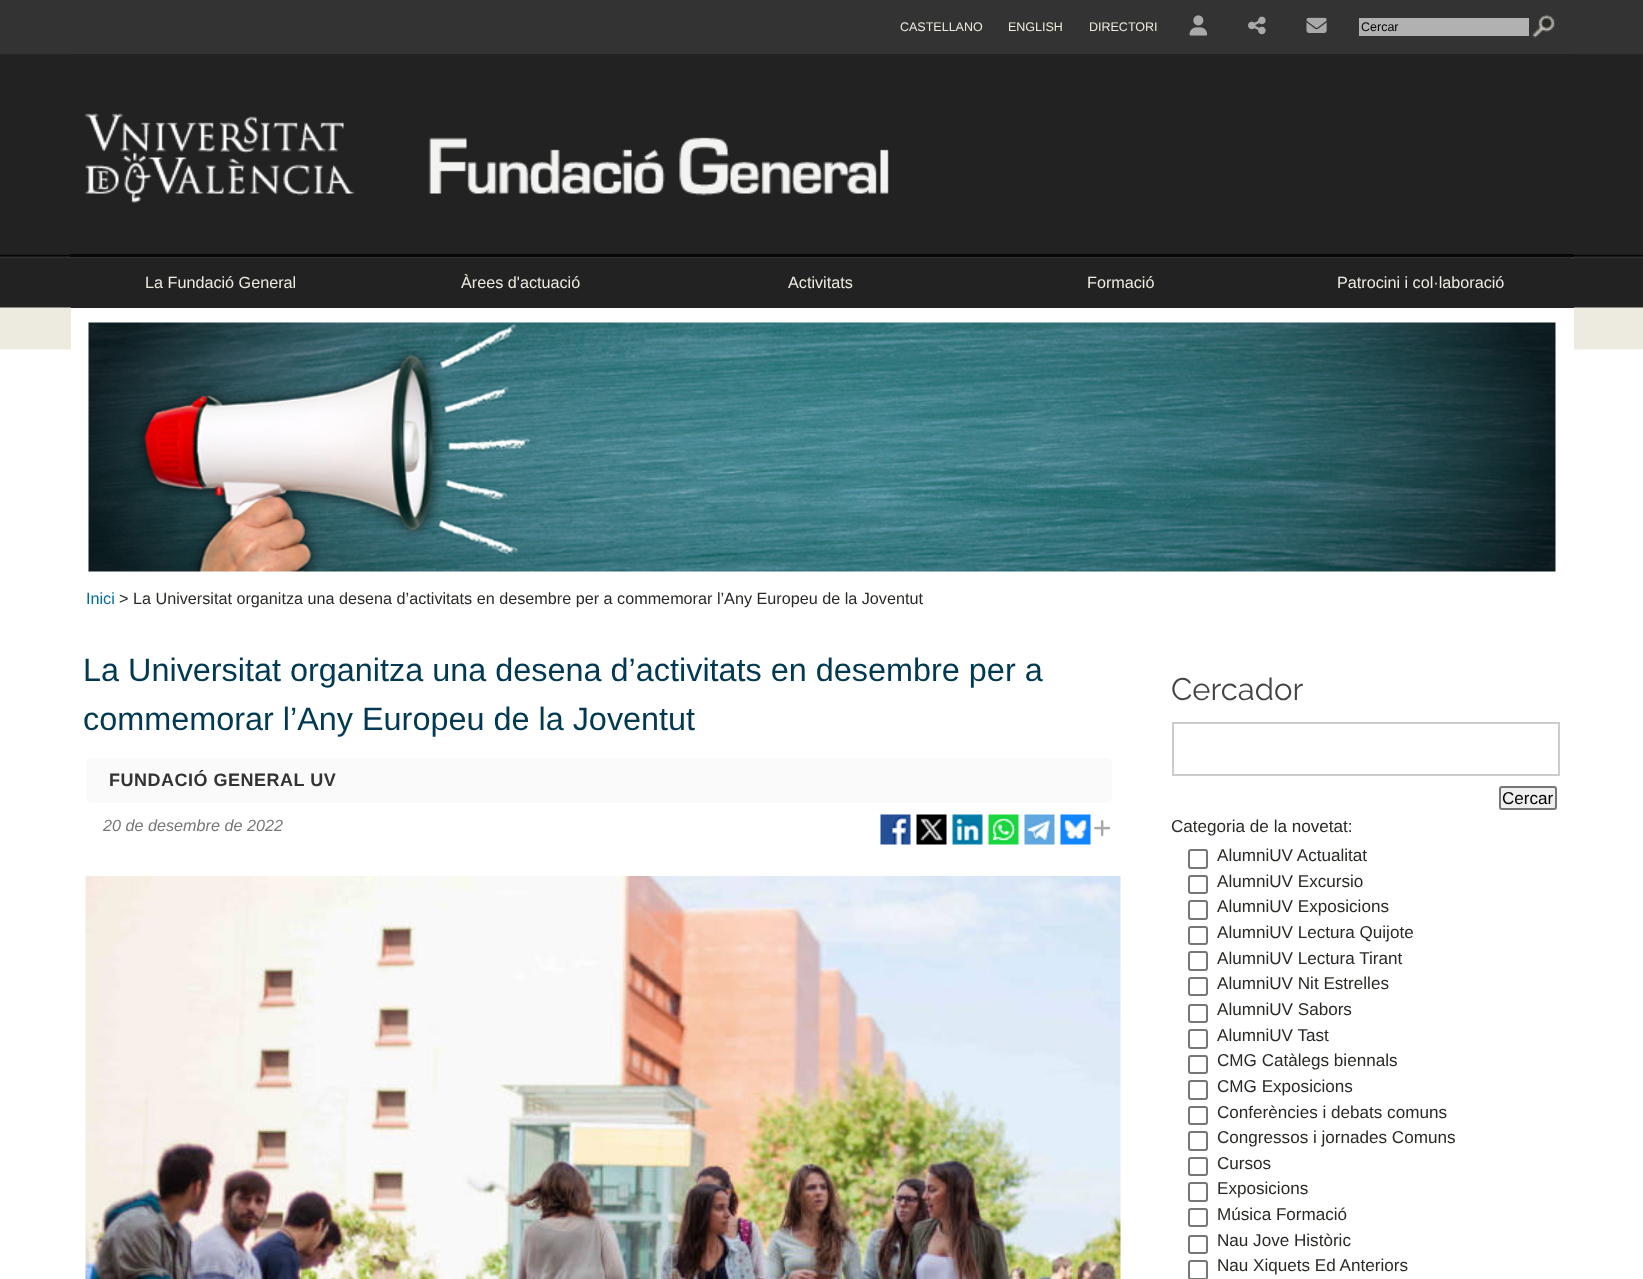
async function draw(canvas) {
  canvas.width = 1643;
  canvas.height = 1279;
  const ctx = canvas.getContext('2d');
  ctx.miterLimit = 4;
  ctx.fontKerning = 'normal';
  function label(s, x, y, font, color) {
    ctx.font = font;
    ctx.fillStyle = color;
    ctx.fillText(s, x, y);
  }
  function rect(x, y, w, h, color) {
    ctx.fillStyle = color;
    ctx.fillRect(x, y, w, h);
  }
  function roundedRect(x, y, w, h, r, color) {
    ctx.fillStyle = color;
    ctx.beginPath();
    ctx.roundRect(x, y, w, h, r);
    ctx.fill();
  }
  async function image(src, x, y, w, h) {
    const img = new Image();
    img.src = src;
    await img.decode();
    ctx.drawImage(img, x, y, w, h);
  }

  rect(0, 0, 1643, 1279, '#fff');
  await image('assets/img1.png', 0, 0, 1643, 350);
  rect(71, 308, 1503, 42, '#fff');
  rect(71, 53, 1503, 1, '#333');
  label('CASTELLANO', 900, 31, '12.5px Liberation Sans', '#edeadf');
  label('ENGLISH', 1008, 31, '12.5px Liberation Sans', '#edeadf');
  label('DIRECTORI', 1089, 31, '12.5px Liberation Sans', '#edeadf');
  await image('assets/img2.png', 1189, 15, 19, 21);
  await image('assets/img3.png', 1248, 16, 18, 19);
  await image('assets/img4.png', 1306, 17, 21, 16);
  rect(1359, 18, 170, 18, '#b1b1b1');
  label('Cercar', 1361, 31, '12.5px Liberation Sans', '#000');
  await image('assets/img5.png', 1532, 14, 23, 24);
  rect(71, 54, 1503, 1, '#222');
  rect(70, 254, 1504, 3, '#070707');
  await image('assets/img6.png', 85, 113, 804, 90);
  rect(1571, 307, 3, 1, '#222');
  rect(71, 257, 1503, 2, '#333');
  rect(71, 258, 1500, 50, '#222');
  label('La Fundació General', 145, 288, '16.2px Liberation Sans', '#edeadf');
  label('Àrees d\'actuació', 461, 288, '16.2px Liberation Sans', '#edeadf');
  label('Activitats', 788, 288, '16.2px Liberation Sans', '#edeadf');
  label('Formació', 1087, 288, '16.2px Liberation Sans', '#edeadf');
  label('Patrocini i col·laboració', 1337, 288, '16.2px Liberation Sans', '#edeadf');
  await image('assets/img7.png', 88, 322, 1468, 250);
  label('Inici', 86, 604, '16.2px Liberation Sans', '#016ca2');
  label('> La Universitat organitza una desena d’activitats en desembre per a commemorar l’Any Europeu de la Joventut', 119, 604, '16.2px Liberation Sans', '#292a25');
  label('La Universitat organitza una desena d’activitats en desembre per a', 83, 681, '32.4px Liberation Sans', '#013952');
  label('commemorar l’Any Europeu de la Joventut', 83, 730, '32.4px Liberation Sans', '#013952');
  roundedRect(86, 758, 1026, 45, 6, '#fafafa');
  ctx.letterSpacing = '0.5px';
  label('FUNDACIÓ GENERAL UV', 109, 786, 'bold 18px Liberation Sans', '#333');
  ctx.letterSpacing = '0px';
  label('20 de desembre de 2022', 103, 831, 'italic 16.2px Liberation Sans', '#777');
  await image('assets/img8.png', 880, 814, 31, 31);
  await image('assets/img9.png', 916, 814, 31, 31);
  await image('assets/img10.png', 952, 814, 31, 31);
  await image('assets/img11.png', 988, 814, 31, 31);
  await image('assets/img12.png', 1024, 814, 31, 31);
  await image('assets/img13.png', 1060, 814, 31, 31);
  await image('assets/img14.png', 1094, 820, 17, 17);
  await image('assets/img15.png', 85, 876, 1036, 403);
  label('Cercador', 1171, 700, '31px Raleway', '#444');
  ctx.strokeStyle = '#ccc';
  ctx.lineWidth = 2;
  ctx.strokeRect(1173, 723, 386, 52);
  ctx.fillStyle = '#efefef';
  ctx.beginPath();
  ctx.roundRect(1500, 787, 56, 22, 2);
  ctx.fill();
  ctx.strokeStyle = '#767676';
  ctx.stroke();
  label('Cercar', 1502, 804, '17.1px Liberation Sans', '#000');
  label('Categoria de la novetat:', 1171, 832, '17.1px Liberation Sans', '#292a25');
  ctx.beginPath();
  ctx.roundRect(1189, 850, 18, 18, 2);
  ctx.stroke();
  label('AlumniUV Actualitat', 1217, 861, '17.1px Liberation Sans', '#292a25');
  ctx.beginPath();
  ctx.roundRect(1189, 876, 18, 17, 2);
  ctx.stroke();
  label('AlumniUV Excursio', 1217, 887, '17.1px Liberation Sans', '#292a25');
  ctx.beginPath();
  ctx.roundRect(1189, 901, 18, 18, 2);
  ctx.stroke();
  label('AlumniUV Exposicions', 1217, 912, '17.1px Liberation Sans', '#292a25');
  ctx.beginPath();
  ctx.roundRect(1189, 927, 18, 17, 2);
  ctx.stroke();
  label('AlumniUV Lectura Quijote', 1217, 938, '17.1px Liberation Sans', '#292a25');
  ctx.beginPath();
  ctx.roundRect(1189, 952, 18, 18, 2);
  ctx.stroke();
  label('AlumniUV Lectura Tirant', 1217, 964, '17.1px Liberation Sans', '#292a25');
  ctx.beginPath();
  ctx.roundRect(1189, 978, 18, 17, 2);
  ctx.stroke();
  label('AlumniUV Nit Estrelles', 1217, 989, '17.1px Liberation Sans', '#292a25');
  ctx.beginPath();
  ctx.roundRect(1189, 1005, 18, 17, 2);
  ctx.stroke();
  label('AlumniUV Sabors', 1217, 1015, '17.1px Liberation Sans', '#292a25');
  ctx.beginPath();
  ctx.roundRect(1189, 1030, 18, 18, 2);
  ctx.stroke();
  label('AlumniUV Tast', 1217, 1041, '17.1px Liberation Sans', '#292a25');
  ctx.beginPath();
  ctx.roundRect(1189, 1056, 18, 17, 2);
  ctx.stroke();
  label('CMG Catàlegs biennals', 1217, 1066, '17.1px Liberation Sans', '#292a25');
  ctx.beginPath();
  ctx.roundRect(1189, 1081, 18, 18, 2);
  ctx.stroke();
  label('CMG Exposicions', 1217, 1092, '17.1px Liberation Sans', '#292a25');
  ctx.beginPath();
  ctx.roundRect(1189, 1107, 18, 17, 2);
  ctx.stroke();
  label('Conferències i debats comuns', 1217, 1118, '17.1px Liberation Sans', '#292a25');
  ctx.beginPath();
  ctx.roundRect(1189, 1132, 18, 18, 2);
  ctx.stroke();
  label('Congressos i jornades Comuns', 1217, 1143, '17.1px Liberation Sans', '#292a25');
  ctx.beginPath();
  ctx.roundRect(1189, 1158, 18, 17, 2);
  ctx.stroke();
  label('Cursos', 1217, 1169, '17.1px Liberation Sans', '#292a25');
  ctx.beginPath();
  ctx.roundRect(1189, 1183, 18, 18, 2);
  ctx.stroke();
  label('Exposicions', 1217, 1194, '17.1px Liberation Sans', '#292a25');
  ctx.beginPath();
  ctx.roundRect(1189, 1209, 18, 17, 2);
  ctx.stroke();
  label('Música Formació', 1217, 1220, '17.1px Liberation Sans', '#292a25');
  ctx.beginPath();
  ctx.roundRect(1189, 1236, 18, 17, 2);
  ctx.stroke();
  label('Nau Jove Històric', 1217, 1246, '17.1px Liberation Sans', '#292a25');
  ctx.beginPath();
  ctx.roundRect(1189, 1261, 18, 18, 2);
  ctx.stroke();
  label('Nau Xiquets Ed Anteriors', 1217, 1271, '17.1px Liberation Sans', '#292a25');
}

draw(document.querySelector('canvas'));
